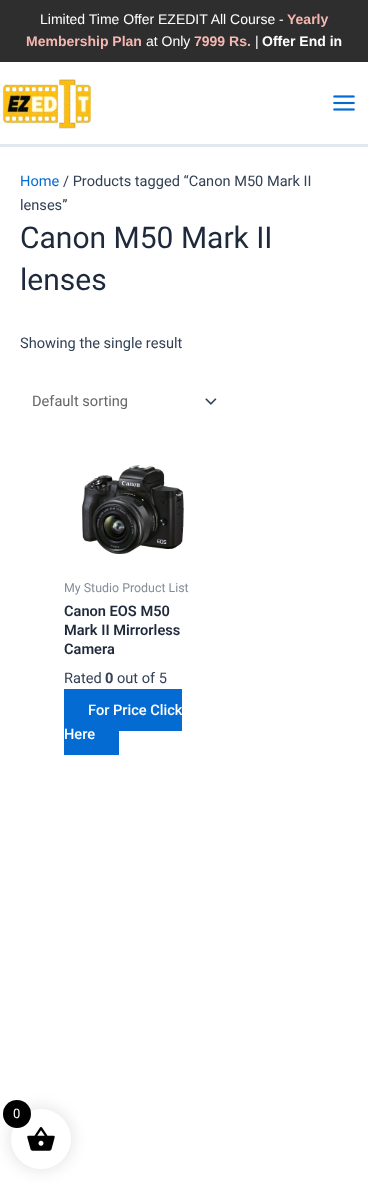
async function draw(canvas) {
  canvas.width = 368;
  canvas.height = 1191;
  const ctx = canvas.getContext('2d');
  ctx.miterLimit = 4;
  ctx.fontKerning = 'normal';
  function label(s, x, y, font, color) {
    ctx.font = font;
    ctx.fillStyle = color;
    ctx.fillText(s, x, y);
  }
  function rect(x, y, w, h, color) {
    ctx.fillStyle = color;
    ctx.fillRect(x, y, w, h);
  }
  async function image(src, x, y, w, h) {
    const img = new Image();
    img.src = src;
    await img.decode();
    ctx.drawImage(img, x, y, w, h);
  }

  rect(0, 0, 368, 1191, '#fff');
  rect(0, 0, 368, 62, '#2e2e2e');
  label('Limited Time Offer EZEDIT All Course -', 40, 24, '14px Liberation Sans', '#fff');
  label('Yearly', 287, 24, 'bold 14px Liberation Sans', '#f5b7b1');
  label('Membership Plan', 26, 46, 'bold 14px Liberation Sans', '#f5b7b1');
  label('at Only', 146, 46, '14px Liberation Sans', '#fff');
  label('7999 Rs.', 194, 46, 'bold 14px Liberation Sans', '#f5b7b1');
  label('|', 255, 46, '14px Liberation Sans', '#fff');
  label('Offer End in', 262, 46, 'bold 14px Liberation Sans', '#fff');
  rect(0, 144, 368, 3, '#e2e8f0');
  await image('assets/img1.png', 2, 79, 89, 50);
  await image('assets/img2.png', 333, 95, 22, 16);
  label('Home', 20, 186, '14.6px Roboto', '#046bd2');
  label('/ Products tagged “Canon M50 Mark II', 63, 186, '14.6px Roboto', '#334155');
  label('lenses”', 20, 210, '14.6px Roboto', '#334155');
  label('Canon M50 Mark II', 20, 248, '30px Roboto', '#1e293b');
  label('lenses', 20, 290, '30px Roboto', '#1e293b');
  label('Showing the single result', 20, 348, '14.6px Roboto', '#334155');
  await image('assets/img3.png', 205, 398, 12, 7);
  label('Default sorting', 32, 406, '14.6px Roboto', '#666');
  await image('assets/img4.png', 81, 465, 103, 89);
  label('My Studio Product List', 64, 592, '12.4px Roboto', '#858d99');
  label('Canon EOS M50', 64, 616, '600 14.6px Roboto', '#1e293b');
  label('Mark II Mirrorless', 64, 635, '600 14.6px Roboto', '#1e293b');
  label('Camera', 64, 654, '600 14.6px Roboto', '#1e293b');
  label('Rated', 64, 683, '14.6px Roboto', '#334155');
  label('0', 105, 683, 'bold 14.6px Roboto', '#334155');
  label('out of 5', 117, 683, '14.6px Roboto', '#334155');
  rect(64, 689, 118, 42, '#046bd2');
  label('For Price Click', 88, 715, '500 14.6px Roboto', '#fff');
  rect(64, 731, 55, 24, '#046bd2');
  label('Here', 64, 739, '500 14.6px Roboto', '#fff');
  ctx.fillStyle = '#0000001a';
  ctx.filter = 'blur(7.5px)';
  ctx.beginPath();
  ctx.roundRect(9, 1107, 64, 64, 32);
  ctx.fill();
  ctx.filter = 'none';
  ctx.fillStyle = '#fff';
  ctx.beginPath();
  ctx.arc(41, 1139, 30, 0, 2 * Math.PI);
  ctx.fill();
  await image('assets/img5.png', 27, 1127, 28, 24);
  ctx.fillStyle = '#000';
  ctx.beginPath();
  ctx.arc(17, 1114, 14, 0, 2 * Math.PI);
  ctx.fill();
  label('0', 13, 1118, '13px Roboto', '#fff');
}

draw(document.querySelector('canvas'));
